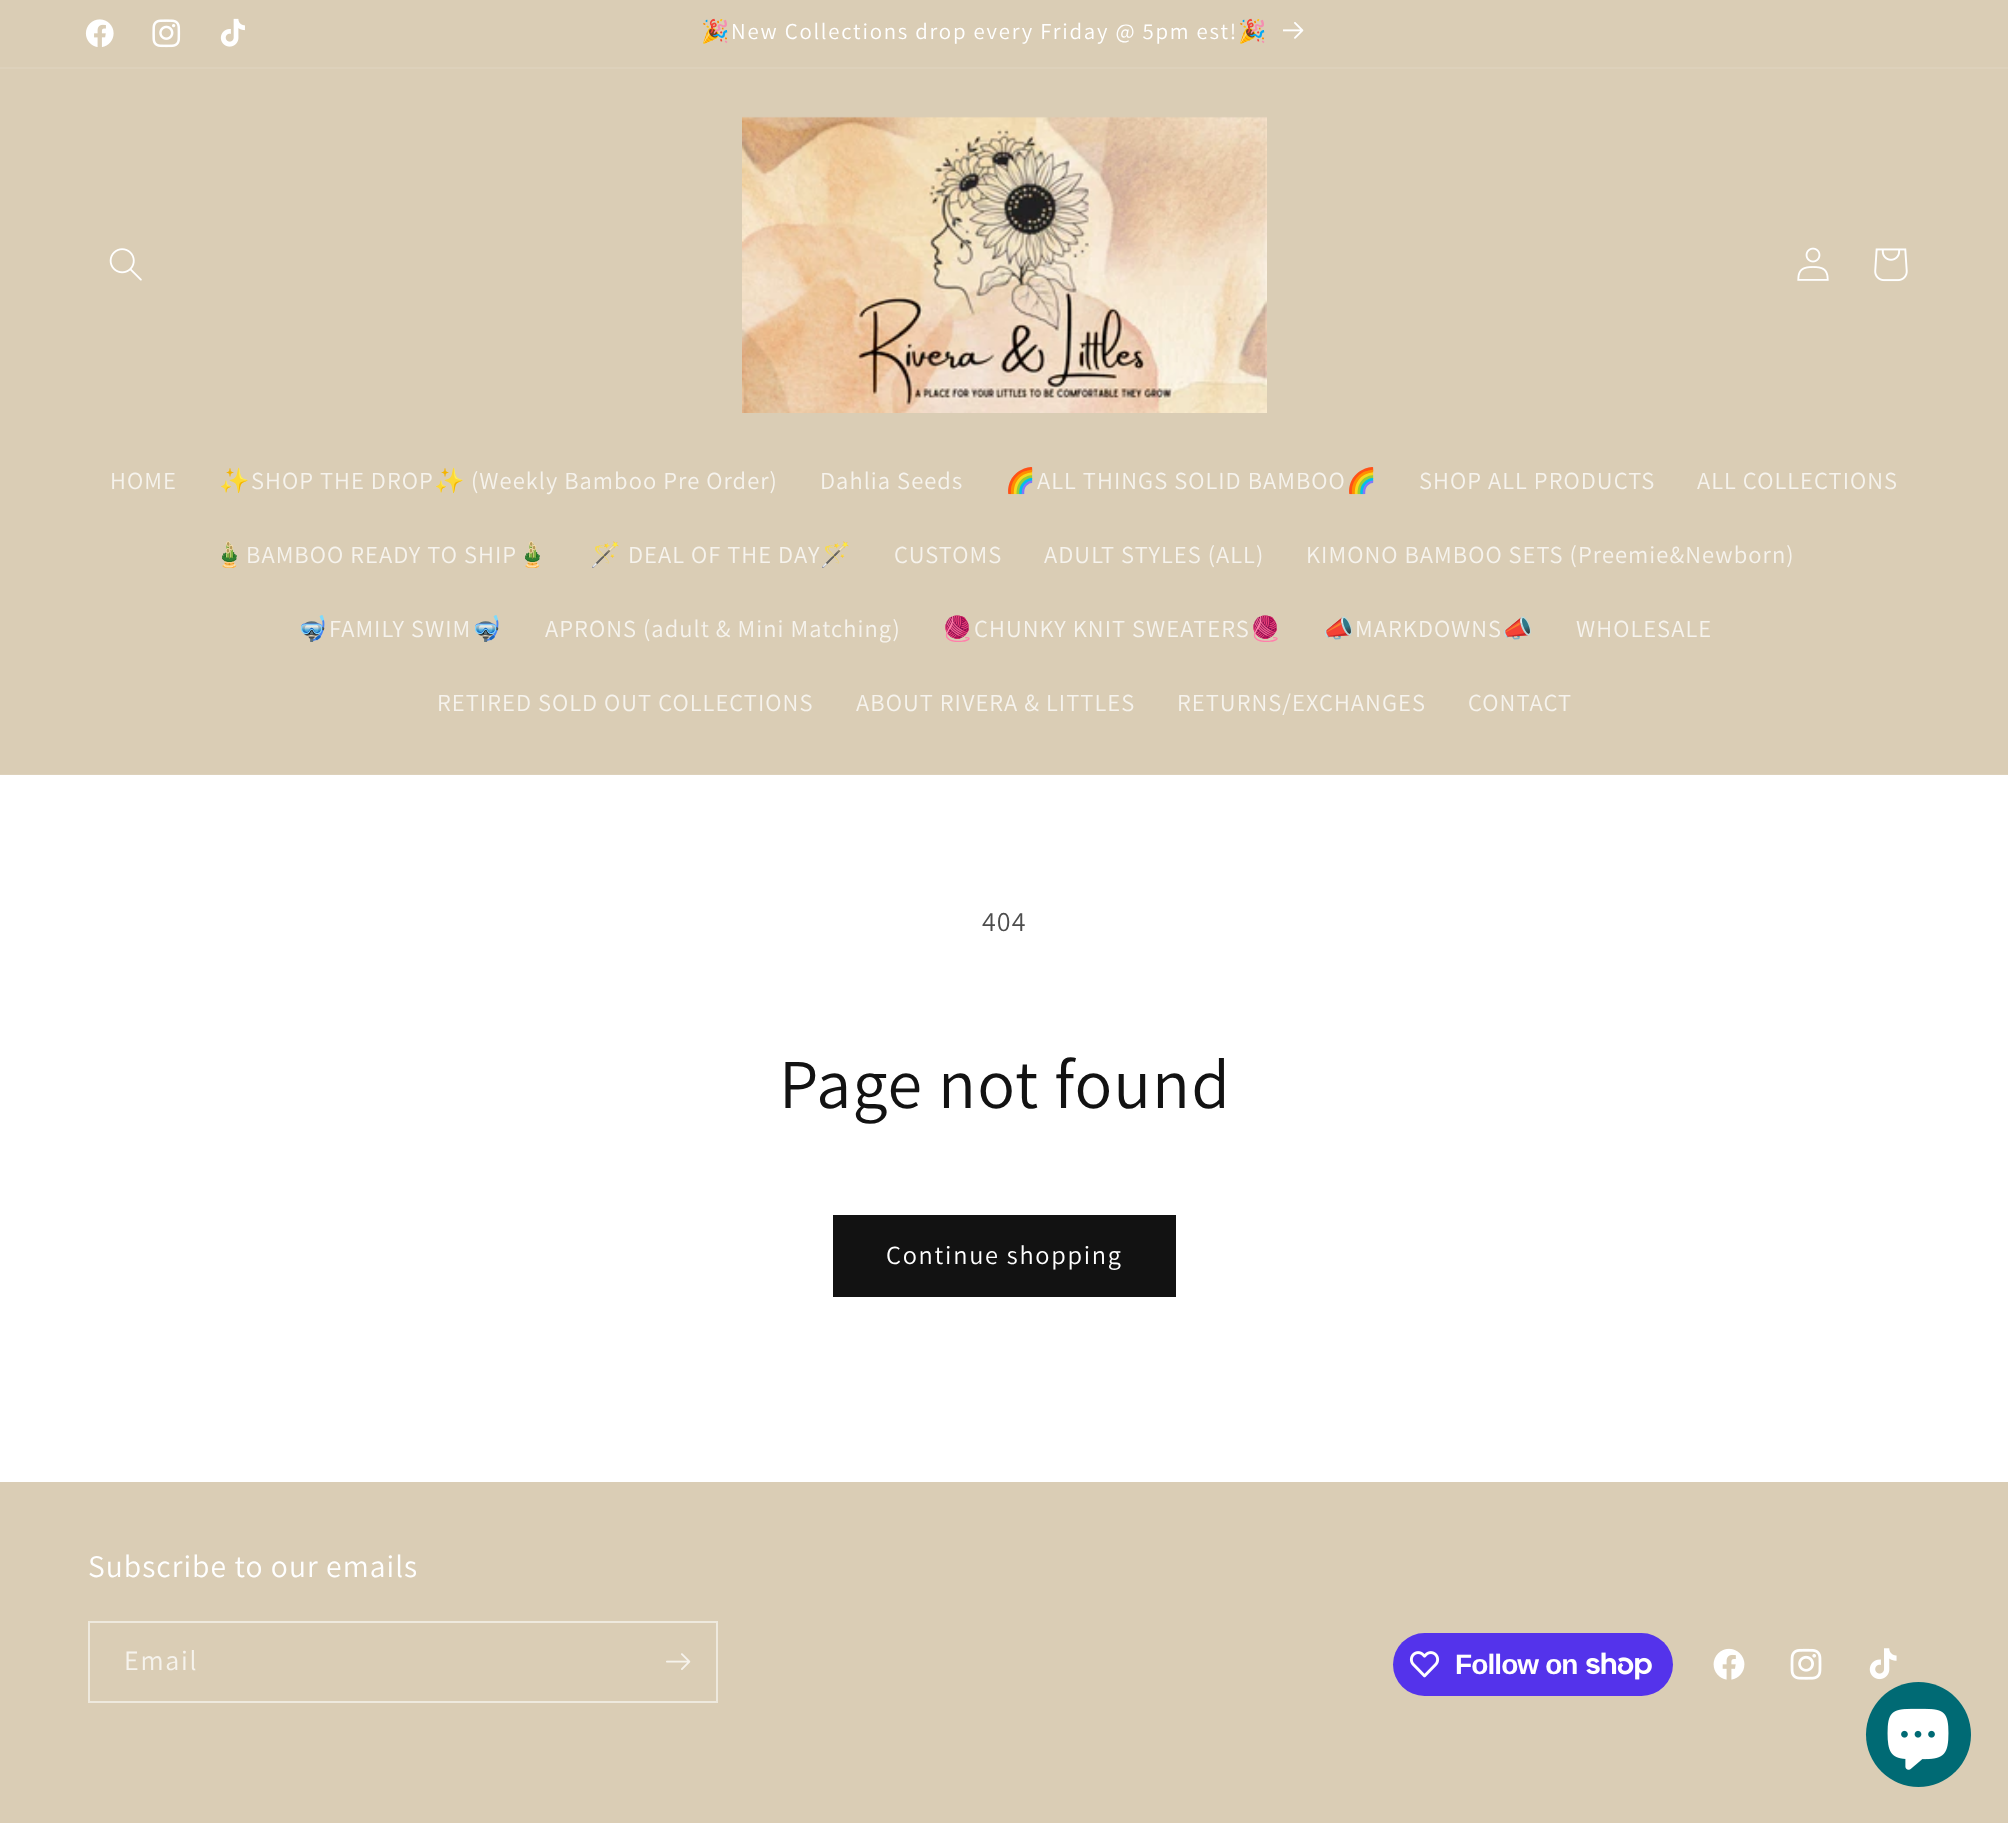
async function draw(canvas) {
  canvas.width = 2008;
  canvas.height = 1823;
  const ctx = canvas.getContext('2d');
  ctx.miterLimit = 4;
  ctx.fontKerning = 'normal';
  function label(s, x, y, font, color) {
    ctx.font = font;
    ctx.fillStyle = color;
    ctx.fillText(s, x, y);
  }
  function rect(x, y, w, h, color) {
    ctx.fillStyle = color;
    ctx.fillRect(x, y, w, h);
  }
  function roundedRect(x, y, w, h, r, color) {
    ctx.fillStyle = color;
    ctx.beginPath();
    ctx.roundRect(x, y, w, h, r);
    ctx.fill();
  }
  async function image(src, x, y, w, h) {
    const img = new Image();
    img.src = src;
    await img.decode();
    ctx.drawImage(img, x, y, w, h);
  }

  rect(0, 0, 2008, 1823, '#fff');
  rect(0, 0, 2008, 67, '#dacdb5');
  rect(0, 67, 2008, 2, '#ddd1bb');
  await image('assets/img1.png', 85, 19, 29, 28);
  await image('assets/img2.png', 152, 19, 29, 29);
  await image('assets/img3.png', 220, 18, 25, 29);
  ctx.letterSpacing = '1.75px';
  label('🎉', 701, 39, '22.75px Noto Color Emoji', '#fff');
  label('New Collections drop every Friday @ 5pm est!', 731, 39, '22.75px Assistant', '#fff');
  label('🎉', 1238, 39, '22.75px Noto Color Emoji', '#fff');
  await image('assets/img4.png', 1283, 22, 21, 17);
  rect(0, 69, 2008, 705, '#dacdb5');
  rect(0, 774, 2008, 1, '#ddd1bb');
  await image('assets/img5.png', 109, 248, 33, 33);
  await image('assets/img6.png', 742, 116, 525, 297);
  await image('assets/img7.png', 1797, 247, 32, 34);
  await image('assets/img8.png', 1874, 248, 34, 34);
  ctx.letterSpacing = '1.05px';
  label('HOME', 110, 489, '24.5px Assistant', '#f6f3ed');
  label('✨', 219, 489, '24.5px Noto Color Emoji', '#f6f3ed');
  label('SHOP THE DROP', 251, 489, '24.5px Assistant', '#f6f3ed');
  label('✨', 434, 489, '24.5px Noto Color Emoji', '#f6f3ed');
  label('(Weekly Bamboo Pre Order)', 471, 489, '24.5px Assistant', '#f6f3ed');
  label('Dahlia Seeds', 820, 489, '24.5px Assistant', '#f6f3ed');
  label('🌈', 1005, 489, '24.5px Noto Color Emoji', '#f6f3ed');
  label('ALL THINGS SOLID BAMBOO', 1037, 489, '24.5px Assistant', '#f6f3ed');
  label('🌈', 1346, 489, '24.5px Noto Color Emoji', '#f6f3ed');
  label('SHOP ALL PRODUCTS', 1419, 489, '24.5px Assistant', '#f6f3ed');
  label('ALL COLLECTIONS', 1697, 489, '24.5px Assistant', '#f6f3ed');
  label('🎍', 214, 563, '24.5px Noto Color Emoji', '#f6f3ed');
  label('BAMBOO READY TO SHIP', 246, 563, '24.5px Assistant', '#f6f3ed');
  label('🎍', 517, 563, '24.5px Noto Color Emoji', '#f6f3ed');
  label('🪄', 590, 563, '24.5px Noto Color Emoji', '#f6f3ed');
  label('DEAL OF THE DAY', 628, 563, '24.5px Assistant', '#f6f3ed');
  label('🪄', 820, 563, '24.5px Noto Color Emoji', '#f6f3ed');
  label('CUSTOMS', 894, 563, '24.5px Assistant', '#f6f3ed');
  label('ADULT STYLES (ALL)', 1044, 563, '24.5px Assistant', '#f6f3ed');
  label('KIMONO BAMBOO SETS (Preemie&Newborn)', 1306, 563, '24.5px Assistant', '#f6f3ed');
  label('🤿', 297, 637, '24.5px Noto Color Emoji', '#f6f3ed');
  label('FAMILY SWIM', 329, 637, '24.5px Assistant', '#f6f3ed');
  label('🤿', 471, 637, '24.5px Noto Color Emoji', '#f6f3ed');
  label('APRONS (adult & Mini Matching)', 545, 637, '24.5px Assistant', '#f6f3ed');
  label('🧶', 942, 637, '24.5px Noto Color Emoji', '#f6f3ed');
  label('CHUNKY KNIT SWEATERS', 974, 637, '24.5px Assistant', '#f6f3ed');
  label('🧶', 1250, 637, '24.5px Noto Color Emoji', '#f6f3ed');
  label('📣', 1323, 637, '24.5px Noto Color Emoji', '#f6f3ed');
  label('MARKDOWNS', 1355, 637, '24.5px Assistant', '#f6f3ed');
  label('📣', 1502, 637, '24.5px Noto Color Emoji', '#f6f3ed');
  label('WHOLESALE', 1576, 637, '24.5px Assistant', '#f6f3ed');
  label('RETIRED SOLD OUT COLLECTIONS', 437, 711, '24.5px Assistant', '#f6f3ed');
  label('ABOUT RIVERA & LITTLES', 856, 711, '24.5px Assistant', '#f6f3ed');
  label('RETURNS/EXCHANGES', 1177, 711, '24.5px Assistant', '#f6f3ed');
  label('CONTACT', 1468, 711, '24.5px Assistant', '#f6f3ed');
  label('404', 982, 931, '28px Assistant', '#4d4d4d');
  label('Page not found', 779, 1108, '70px Assistant', '#121212');
  rect(833, 1215, 343, 82, '#121212');
  ctx.letterSpacing = '1.75px';
  label('Continue shopping', 886, 1264, '26.25px Assistant', '#fff');
  rect(0, 1482, 2008, 341, '#dacdb5');
  ctx.letterSpacing = '1.05px';
  label('Subscribe to our emails', 88, 1577, '31.5px Assistant', '#fff');
  ctx.strokeStyle = '#eee9de';
  ctx.lineWidth = 2;
  ctx.strokeRect(89, 1622, 628, 80);
  ctx.letterSpacing = '1.75px';
  label('Email', 124, 1670, '28px Assistant', '#f6f3ed');
  await image('assets/img9.png', 666, 1653, 25, 17);
  roundedRect(1393, 1633, 280, 63, 31.5, '#5433eb');
  await image('assets/img10.png', 1409, 1651, 31, 27);
  ctx.letterSpacing = '-0.9px';
  label('Follow on', 1455, 1674, 'bold 28px Liberation Sans', '#fff');
  await image('assets/img11.png', 1586, 1652, 66, 28);
  await image('assets/img12.png', 1713, 1648, 32, 32);
  await image('assets/img13.png', 1790, 1648, 32, 32);
  await image('assets/img14.png', 1869, 1648, 28, 32);
  ctx.fillStyle = '#006a74';
  ctx.beginPath();
  ctx.arc(1918.5, 1734.5, 52.5, 0, 2 * Math.PI);
  ctx.fill();
  await image('assets/img15.png', 1887, 1708, 62, 62);
}

draw(document.querySelector('canvas'));
